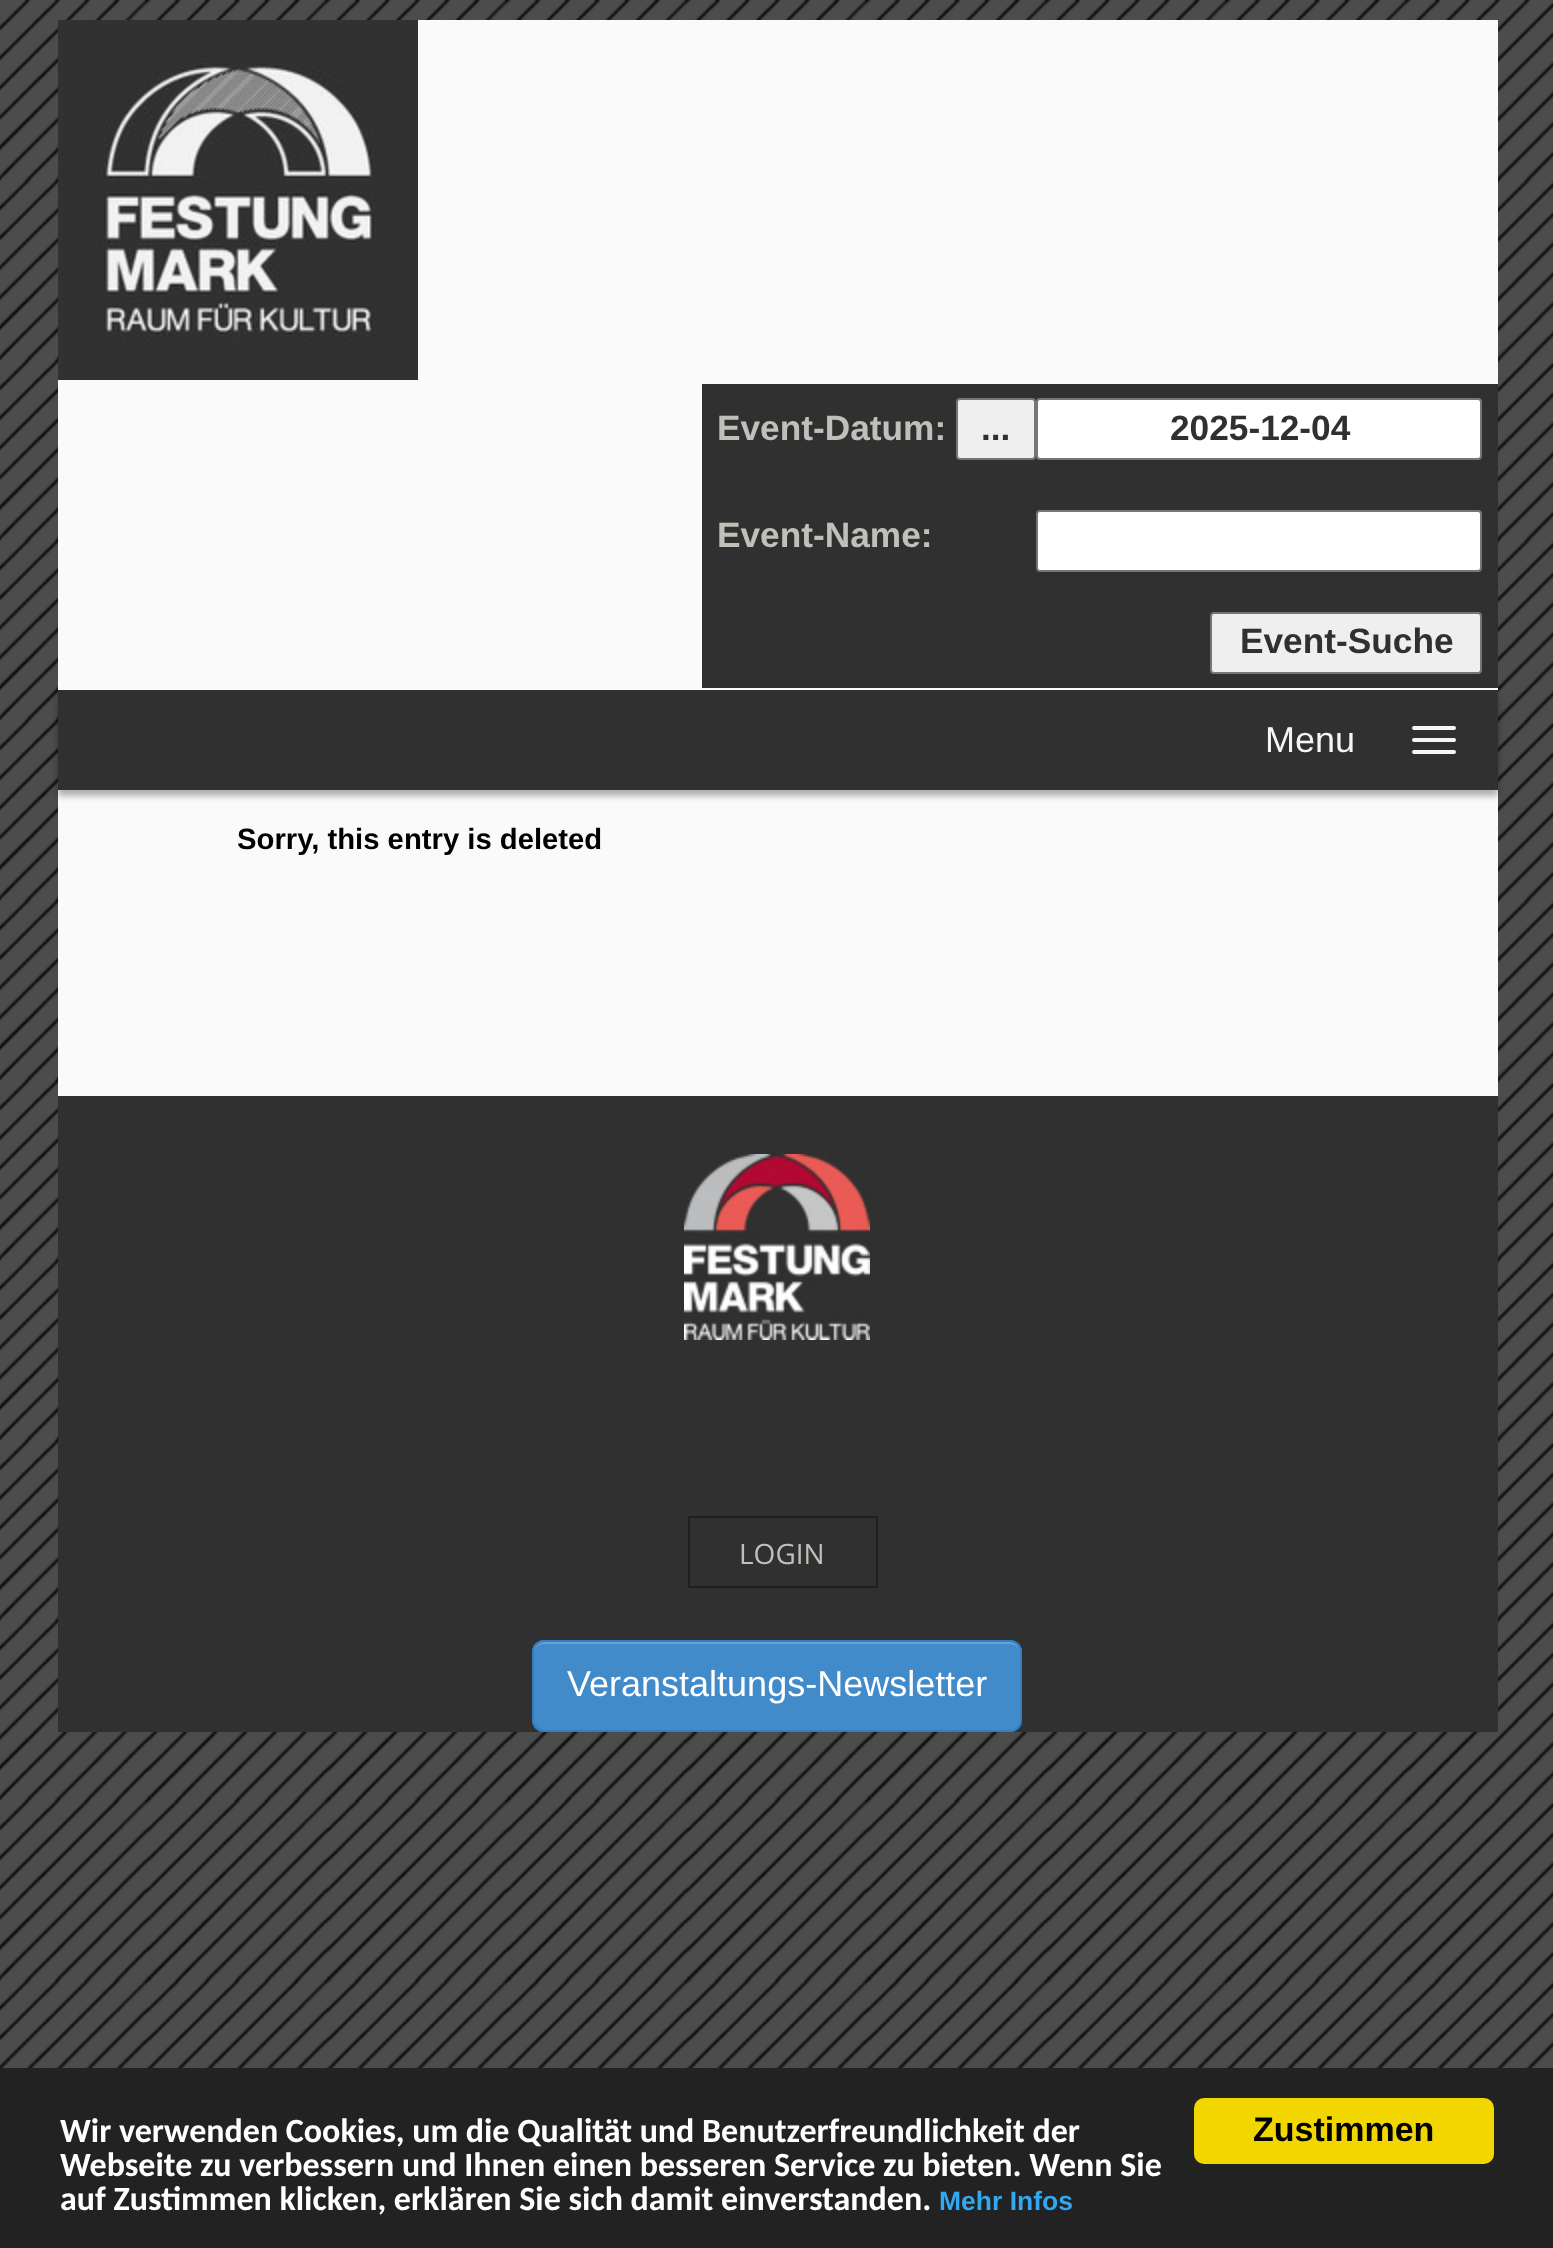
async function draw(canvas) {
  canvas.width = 1553;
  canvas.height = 2248;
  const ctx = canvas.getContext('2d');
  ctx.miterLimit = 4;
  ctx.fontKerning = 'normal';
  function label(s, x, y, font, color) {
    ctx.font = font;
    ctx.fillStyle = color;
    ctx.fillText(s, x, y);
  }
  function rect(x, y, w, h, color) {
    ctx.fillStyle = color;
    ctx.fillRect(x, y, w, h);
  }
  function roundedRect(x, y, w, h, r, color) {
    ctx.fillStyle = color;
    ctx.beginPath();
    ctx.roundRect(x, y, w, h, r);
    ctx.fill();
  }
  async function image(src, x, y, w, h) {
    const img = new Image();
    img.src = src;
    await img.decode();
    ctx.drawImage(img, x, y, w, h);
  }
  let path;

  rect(0, 0, 1553, 2248, '#4c4c4c');
  await image('assets/img1.png', 0, 0, 1553, 2068);
  rect(58, 20, 1440, 1076, '#fafafa');
  await image('assets/img2.png', 58, 20, 360, 360);
  rect(702, 384, 796, 304, '#303030');
  label('Event-Datum:', 717, 440, 'bold 35.25px Liberation Sans', '#c0c0ba');
  ctx.fillStyle = '#efefef';
  ctx.beginPath();
  ctx.roundRect(957, 399, 78, 60, 3);
  ctx.fill();
  ctx.strokeStyle = '#767676';
  ctx.lineWidth = 2;
  ctx.stroke();
  label('...', 981, 440, 'bold 35.25px Liberation Sans', '#303030');
  ctx.fillStyle = '#fff';
  ctx.beginPath();
  ctx.roundRect(1037, 399, 444, 60, 3);
  ctx.fill();
  ctx.stroke();
  label('2025-12-04', 1170, 440, 'bold 35.25px Liberation Sans', '#303030');
  label('Event-Name:', 717, 547, 'bold 35.25px Liberation Sans', '#c0c0ba');
  ctx.fillStyle = '#fff';
  ctx.beginPath();
  ctx.roundRect(1037, 511, 444, 60, 3);
  ctx.fill();
  ctx.stroke();
  ctx.fillStyle = '#efefef';
  ctx.beginPath();
  ctx.roundRect(1211, 613, 270, 60, 3);
  ctx.fill();
  ctx.stroke();
  label('Event-Suche', 1240, 653, 'bold 35.25px Liberation Sans', '#303030');
  ctx.fillStyle = '#0000004d';
  ctx.filter = 'blur(3px)';
  ctx.beginPath();
  ctx.rect(58, 696, 1440, 100);
  ctx.fill();
  ctx.filter = 'none';
  rect(58, 690, 1440, 100, '#303030');
  label('Menu', 1265, 752, '36px Liberation Sans', '#f5f5f5');
  roundedRect(1412, 726, 44, 4, 2, '#f5f5f5');
  roundedRect(1412, 738, 44, 4, 2, '#f5f5f5');
  roundedRect(1412, 750, 44, 4, 2, '#f5f5f5');
  label('Sorry, this entry is deleted', 237, 849, 'bold 29.25px Liberation Sans', '#000');
  rect(58, 1096, 1440, 636, '#303030');
  await image('assets/img3.png', 684, 1154, 186, 186);
  ctx.strokeStyle = '#1f1f1f';
  ctx.strokeRect(689, 1517, 188, 70);
  label('LOGIN', 739, 1564, '28px Open Sans', '#c0c0ba');
  roundedRect(532, 1640, 490, 92, 12, '#428bca');
  ctx.fillStyle = '#68a2d5';
  path = new Path2D('M544 1644H1010C1016 1644 1020 1648 1020 1654V1652C1020 1646 1016 1642 1010 1642H544C538 1642 534 1646 534 1652V1654C534 1648 538 1644 544 1644Z');
  ctx.fill(path);
  ctx.beginPath();
  ctx.roundRect(533, 1641, 488, 90, 11);
  ctx.strokeStyle = '#357ebd';
  ctx.stroke();
  label('Veranstaltungs-Newsletter', 567, 1696, '36px Liberation Sans', '#fff');
  rect(0, 2068, 1553, 180, '#222');
  label('Wir verwenden Cookies, um die Qualität und Benutzerfreundlichkeit der', 60, 2142, 'bold 34px Carlito', '#fff');
  label('Webseite zu verbessern und Ihnen einen besseren Service zu bieten. Wenn Sie', 60, 2176, 'bold 34px Carlito', '#fff');
  label('auf Zustimmen klicken, erklären Sie sich damit einverstanden.', 60, 2210, 'bold 34px Carlito', '#fff');
  label('Mehr Infos', 939, 2210, 'bold 26.5px Liberation Sans', '#31a8f0');
  roundedRect(1194, 2098, 300, 66, 10, '#f1d600');
  label('Zustimmen', 1253, 2141, 'bold 34px Liberation Sans', '#000');
}

draw(document.querySelector('canvas'));
